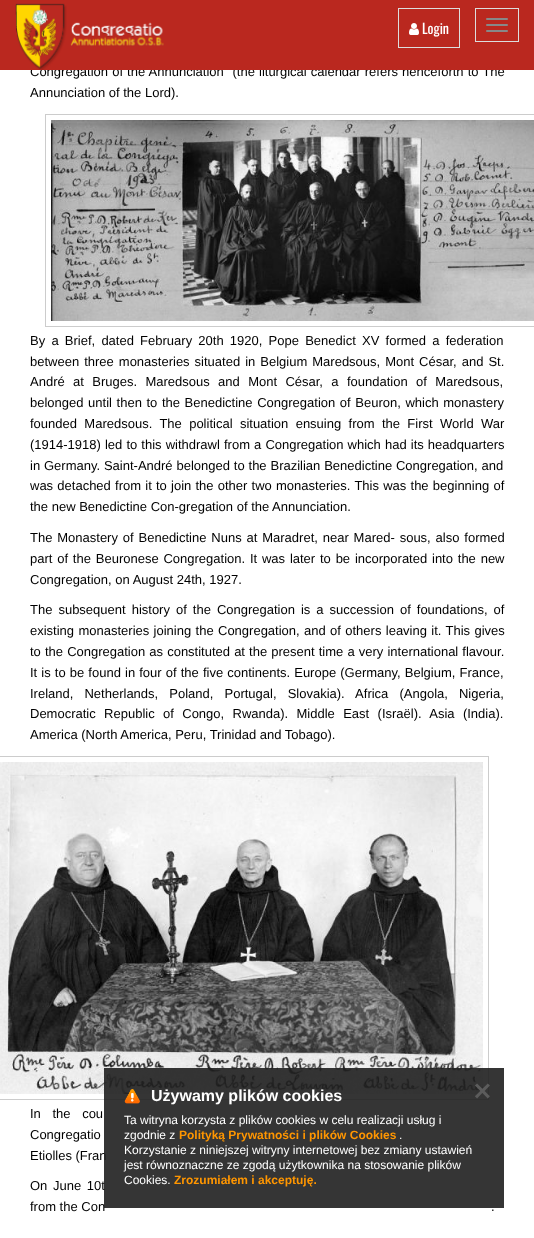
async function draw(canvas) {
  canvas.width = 534;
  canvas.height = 1238;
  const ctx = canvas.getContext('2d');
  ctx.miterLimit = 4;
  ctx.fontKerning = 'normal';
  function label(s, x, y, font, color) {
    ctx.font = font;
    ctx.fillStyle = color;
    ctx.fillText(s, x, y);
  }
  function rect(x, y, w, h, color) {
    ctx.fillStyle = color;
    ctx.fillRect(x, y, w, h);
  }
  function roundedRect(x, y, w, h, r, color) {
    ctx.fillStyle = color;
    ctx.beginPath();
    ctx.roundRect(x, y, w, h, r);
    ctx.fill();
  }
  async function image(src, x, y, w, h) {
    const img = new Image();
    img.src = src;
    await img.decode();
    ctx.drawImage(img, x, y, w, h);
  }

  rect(0, 0, 534, 1238, '#fff');
  ctx.wordSpacing = '0.5px';
  label('Congregation of the Annunciation" (the liturgical calendar refers henceforth to The', 30, 76, '13px Liberation Sans', '#000');
  rect(0, 0, 534, 70, '#ba281f');
  await image('assets/img1.png', 15, 3, 149, 67);
  ctx.strokeStyle = '#ddd';
  ctx.strokeRect(398.5, 8.5, 61, 39);
  await image('assets/img2.png', 409, 23, 10, 12);
  ctx.wordSpacing = '0px';
  label('Login', 422, 34, '14px Oswald', '#fff');
  ctx.strokeRect(475.5, 8.5, 43, 33);
  roundedRect(486, 18, 22, 2, 1, '#888');
  roundedRect(486, 24, 22, 2, 1, '#888');
  roundedRect(486, 30, 22, 2, 1, '#888');
  label('Annunciation of the Lord).', 30, 97, '13px Liberation Sans', '#000');
  ctx.strokeStyle = '#ccc';
  ctx.strokeRect(45.5, 114.5, 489, 212);
  await image('assets/img3.png', 51, 120, 483, 201);
  ctx.wordSpacing = '2.6px';
  label('By a Brief, dated February 20th 1920, Pope Benedict XV formed a federation', 30, 345, '13px Liberation Sans', '#000');
  ctx.wordSpacing = '1.4px';
  label('between three monasteries situated in Belgium Maredsous, Mont César, and St.', 30, 366, '13px Liberation Sans', '#000');
  ctx.wordSpacing = '4.75px';
  label('André at Bruges. Maredsous and Mont César, a foundation of Maredsous,', 30, 386, '13px Liberation Sans', '#000');
  ctx.wordSpacing = '1px';
  label('belonged until then to the Benedictine Congregation of Beuron, which monastery', 30, 407, '13px Liberation Sans', '#000');
  ctx.wordSpacing = '3.75px';
  label('founded Maredsous. The political situation ensuing from the First World War', 30, 428, '13px Liberation Sans', '#000');
  ctx.wordSpacing = '0.5px';
  label('(1914-1918) led to this withdrawl from a Congregation which had its headquarters', 30, 449, '13px Liberation Sans', '#000');
  ctx.wordSpacing = '0.25px';
  label('in Germany. Saint-André belonged to the Brazilian Benedictine Congregation, and', 30, 470, '13px Liberation Sans', '#000');
  ctx.wordSpacing = '0.6px';
  label('was detached from it to join the other two monasteries. This was the beginning of', 30, 490, '13px Liberation Sans', '#000');
  ctx.wordSpacing = '0px';
  label('the new Benedictine Con-gregation of the Annunciation.', 30, 511, '13px Liberation Sans', '#000');
  ctx.wordSpacing = '1.25px';
  label('The Monastery of Benedictine Nuns at Maradret, near Mared- sous, also formed', 30, 542, '13px Liberation Sans', '#000');
  ctx.wordSpacing = '1.2px';
  label('part of the Beuronese Congregation. It was later to be incorporated into the new', 30, 563, '13px Liberation Sans', '#000');
  ctx.wordSpacing = '0px';
  label('Congregation, on August 24th, 1927.', 30, 584, '13px Liberation Sans', '#000');
  ctx.wordSpacing = '2.4px';
  label('The subsequent history of the Congregation is a succession of foundations, of', 30, 614, '13px Liberation Sans', '#000');
  ctx.wordSpacing = '0.75px';
  label('existing monasteries joining the Congregation, and of others leaving it. This gives', 30, 635, '13px Liberation Sans', '#000');
  ctx.wordSpacing = '0.5px';
  label('to the Congregation as constituted at the present time a very international flavour.', 30, 656, '13px Liberation Sans', '#000');
  label('It is to be found in four of the five continents. Europe (Germany, Belgium, France,', 30, 677, '13px Liberation Sans', '#000');
  ctx.wordSpacing = '7.5px';
  label('Ireland, Netherlands, Poland, Portugal, Slovakia). Africa (Angola, Nigeria,', 30, 698, '13px Liberation Sans', '#000');
  ctx.wordSpacing = '4.75px';
  label('Democratic Republic of Congo, Rwanda). Middle East (Israël). Asia (India).', 30, 718, '13px Liberation Sans', '#000');
  ctx.wordSpacing = '0px';
  label('America (North America, Peru, Trinidad and Tobago).', 30, 739, '13px Liberation Sans', '#000');
  ctx.strokeRect(-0.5, 756.5, 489, 343);
  await image('assets/img4.png', 0, 762, 483, 332);
  ctx.wordSpacing = '8px';
  label('In the cou', 30, 1118, '13px Liberation Sans', '#000');
  ctx.wordSpacing = '4px';
  label('Congregatio', 30, 1139, '13px Liberation Sans', '#000');
  ctx.wordSpacing = '0px';
  label('Etiolles (Fran', 30, 1160, '13px Liberation Sans', '#000');
  ctx.wordSpacing = '2px';
  label('On June 10t', 30, 1190, '13px Liberation Sans', '#000');
  ctx.wordSpacing = '0px';
  label('from the Con', 30, 1211, '13px Liberation Sans', '#000');
  label('.', 491, 1211, '13px Liberation Sans', '#000');
  rect(104, 1068, 400, 140, '#1f1f1fe6');
  await image('assets/img5.png', 124, 1089, 16, 15);
  label('Używamy plików cookies', 151, 1101, 'bold 16px Liberation Sans', '#fff');
  label('✕', 472, 1100, 'bold 24px DejaVu Sans', '#5c5c5c');
  label('Ta witryna korzysta z plików cookies w celu realizacji usług i', 124, 1124, '12px Liberation Sans', '#fff');
  label('zgodnie z', 124, 1139, '12px Liberation Sans', '#fff');
  label('Polityką Prywatności i plików Cookies', 179, 1139, 'bold 12px Liberation Sans', '#ff9600');
  label('.', 399, 1139, '12px Liberation Sans', '#fff');
  label('Korzystanie z niniejszej witryny internetowej bez zmiany ustawień', 124, 1154, '12px Liberation Sans', '#fff');
  label('jest równoznaczne ze zgodą użytkownika na stosowanie plików', 124, 1169, '12px Liberation Sans', '#fff');
  label('Cookies.', 124, 1184, '12px Liberation Sans', '#fff');
  label('Zrozumiałem i akceptuję.', 174, 1184, 'bold 12px Liberation Sans', '#ff9600');
}

draw(document.querySelector('canvas'));
